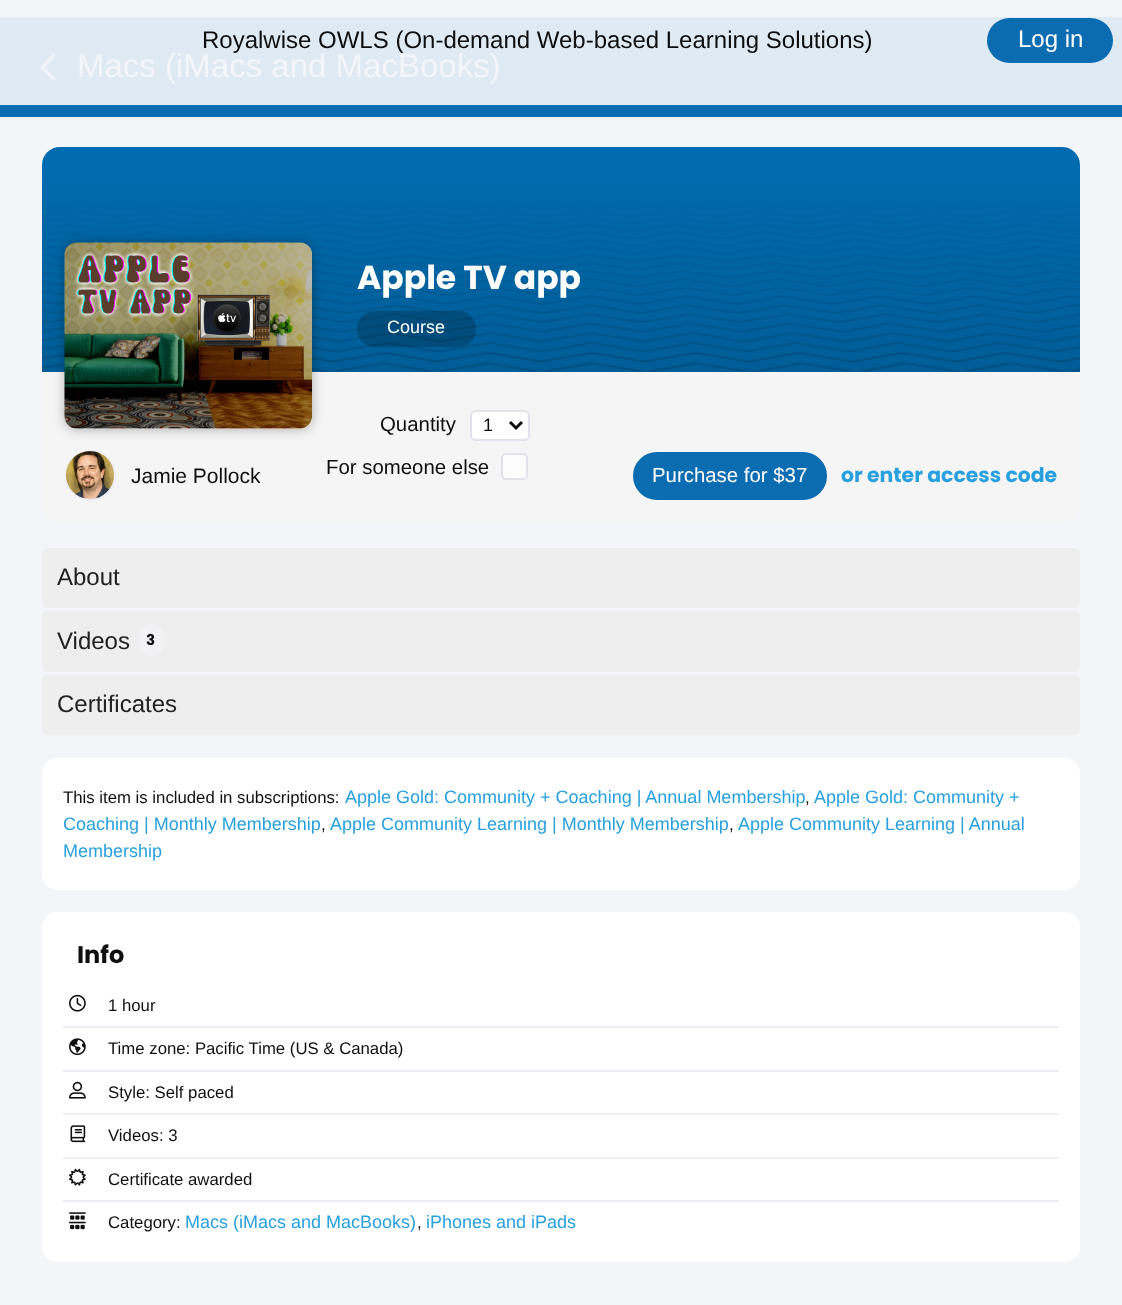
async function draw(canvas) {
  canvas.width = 1122;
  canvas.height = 1305;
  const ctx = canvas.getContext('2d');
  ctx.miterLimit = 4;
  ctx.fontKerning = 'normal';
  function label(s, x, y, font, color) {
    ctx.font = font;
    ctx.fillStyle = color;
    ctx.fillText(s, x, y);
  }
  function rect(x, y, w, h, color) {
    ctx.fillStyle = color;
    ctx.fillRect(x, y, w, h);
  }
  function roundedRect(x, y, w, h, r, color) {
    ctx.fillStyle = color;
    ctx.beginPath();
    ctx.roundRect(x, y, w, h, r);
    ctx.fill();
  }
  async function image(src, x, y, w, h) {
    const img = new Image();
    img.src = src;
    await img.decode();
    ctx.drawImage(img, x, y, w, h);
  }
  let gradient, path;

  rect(0, 0, 1122, 1305, '#f3f5f9');
  rect(0, 17, 1122, 88, '#e0eaf3');
  label('Royalwise OWLS (On-demand Web-based Learning Solutions)', 202, 48, '24px Liberation Sans', '#0f0f0f');
  roundedRect(987, 18, 126, 45, 22.5, '#0b6cb1');
  label('Log in', 1018, 47, '24px Liberation Sans', '#fff');
  rect(0, 105, 1122, 12, '#0b6cb1');
  await image('assets/img1.png', 40, 53, 16, 28);
  label('Macs (iMacs and MacBooks)', 77, 77, '33px Liberation Sans', '#f4f6f9');
  roundedRect(42, 147, 1038, 375, 15, '#f5f5f5');
  ctx.fillStyle = '#006caf';
  ctx.beginPath();
  ctx.roundRect(42, 147, 1038, 225, [18, 18, 0, 0]);
  ctx.fill();
  await image('assets/img2.png', 42, 205, 1038, 167);
  gradient = ctx.createLinearGradient(561, 147, 561, 372);
  gradient.addColorStop(0, '#00000000');
  gradient.addColorStop(1, '#00000024');
  ctx.fillStyle = gradient;
  ctx.fillRect(42, 182, 1038, 190);
  ctx.fillStyle = '#0000004d';
  ctx.filter = 'blur(6px)';
  ctx.beginPath();
  ctx.roundRect(65, 243, 247, 186, 12);
  ctx.fill();
  ctx.filter = 'none';
  roundedRect(65, 243, 247, 186, 12, '#fff');
  await image('assets/img3.png', 64, 242, 248, 187);
  label('Apple TV app', 357, 289, 'bold 33px Poppins', '#fff');
  roundedRect(357, 311, 119, 36, 18, '#00000033');
  label('Course', 387, 333, '18px Liberation Sans', '#fff');
  ctx.beginPath();
  ctx.arc(90.5, 475.5, 24.5, 0, 2 * Math.PI);
  ctx.strokeStyle = '#eeeef8';
  ctx.lineWidth = 2;
  ctx.stroke();
  await image('assets/img4.png', 66, 451, 48, 48);
  label('Jamie Pollock', 131, 483, '21px Liberation Sans', '#0f0f0f');
  label('Quantity', 380, 431, '20.4px Liberation Sans', '#0f0f0f');
  ctx.fillStyle = '#fff';
  ctx.beginPath();
  ctx.roundRect(471, 411, 58, 29, 5);
  ctx.fill();
  ctx.strokeStyle = '#e1e1eb';
  ctx.stroke();
  path = new Path2D('M510 422L516 428L522 422');
  ctx.strokeStyle = '#0f0f0f';
  ctx.lineWidth = 3;
  ctx.stroke(path);
  label('1', 483, 431, '18px Liberation Sans', '#0f0f0f');
  label('For someone else', 326, 474, '20.4px Liberation Sans', '#0f0f0f');
  ctx.fillStyle = '#fcfcfc';
  ctx.beginPath();
  ctx.roundRect(502, 454, 25, 25, 4);
  ctx.fill();
  ctx.strokeStyle = '#e1e1eb';
  ctx.lineWidth = 2;
  ctx.stroke();
  ctx.fillStyle = '#0b6cb1';
  ctx.beginPath();
  ctx.roundRect(634, 453, 192, 46, 23);
  ctx.fill();
  ctx.strokeStyle = '#0b6cb1';
  ctx.stroke();
  label('Purchase for $37', 652, 482, '20.4px Liberation Sans', '#fff');
  label('or enter access code', 841, 482, 'bold 20.4px Poppins', '#28a0de');
  roundedRect(42, 548, 1038, 60, 6, '#eee');
  label('About', 57, 585, '24px Liberation Sans', '#222');
  roundedRect(42, 611, 1038, 61, 6, '#eee');
  label('Videos', 57, 649, '24px Liberation Sans', '#222');
  roundedRect(138, 624, 26, 32, 13, '#f2f2f4');
  label('3', 146, 645, 'bold 15px Poppins', '#0f0f0f');
  roundedRect(42, 675, 1038, 60, 6, '#eee');
  label('Certificates', 57, 712, '24px Liberation Sans', '#222');
  roundedRect(42, 758, 1038, 132, 15, '#fff');
  label('This item is included in subscriptions:', 63, 803, '16.75px Liberation Sans', '#0f0f0f');
  label('Apple Gold: Community + Coaching | Annual Membership', 345, 803, '18px Liberation Sans', '#28a0de');
  label(',', 805, 803, '16.75px Liberation Sans', '#0f0f0f');
  label('Apple Gold: Community +', 814, 803, '18px Liberation Sans', '#28a0de');
  label('Coaching | Monthly Membership', 63, 830, '18px Liberation Sans', '#28a0de');
  label(',', 321, 830, '16.75px Liberation Sans', '#0f0f0f');
  label('Apple Community Learning | Monthly Membership', 330, 830, '18px Liberation Sans', '#28a0de');
  label(',', 729, 830, '16.75px Liberation Sans', '#0f0f0f');
  label('Apple Community Learning | Annual', 738, 830, '18px Liberation Sans', '#28a0de');
  label('Membership', 63, 857, '18px Liberation Sans', '#28a0de');
  roundedRect(42, 912, 1038, 350, 15, '#fff');
  label('Info', 77, 963, 'bold 24px Poppins', '#0f0f0f');
  rect(63, 1026, 996, 2, '#eeeef8');
  await image('assets/img5.png', 69, 994, 17, 18);
  label('1 hour', 108, 1011, '16.75px Liberation Sans', '#0f0f0f');
  rect(63, 1070, 996, 2, '#eeeef8');
  await image('assets/img6.png', 69, 1038, 17, 18);
  label('Time zone: Pacific Time (US & Canada)', 108, 1054, '16.75px Liberation Sans', '#0f0f0f');
  rect(63, 1113, 996, 2, '#eeeef8');
  await image('assets/img7.png', 69, 1081, 17, 18);
  label('Style: Self paced', 108, 1098, '16.75px Liberation Sans', '#0f0f0f');
  rect(63, 1157, 996, 2, '#eeeef8');
  await image('assets/img8.png', 70, 1125, 16, 18);
  label('Videos: 3', 108, 1141, '16.75px Liberation Sans', '#0f0f0f');
  rect(63, 1200, 996, 2, '#eeeef8');
  await image('assets/img9.png', 69, 1168, 17, 18);
  label('Certificate awarded', 108, 1185, '16.75px Liberation Sans', '#0f0f0f');
  await image('assets/img10.png', 69, 1212, 17, 18);
  label('Category:', 108, 1228, '16.75px Liberation Sans', '#0f0f0f');
  label('Macs (iMacs and MacBooks)', 185, 1228, '18px Liberation Sans', '#28a0de');
  label(',', 417, 1228, '16.75px Liberation Sans', '#0f0f0f');
  label('iPhones and iPads', 426, 1228, '18px Liberation Sans', '#28a0de');
}

draw(document.querySelector('canvas'));
